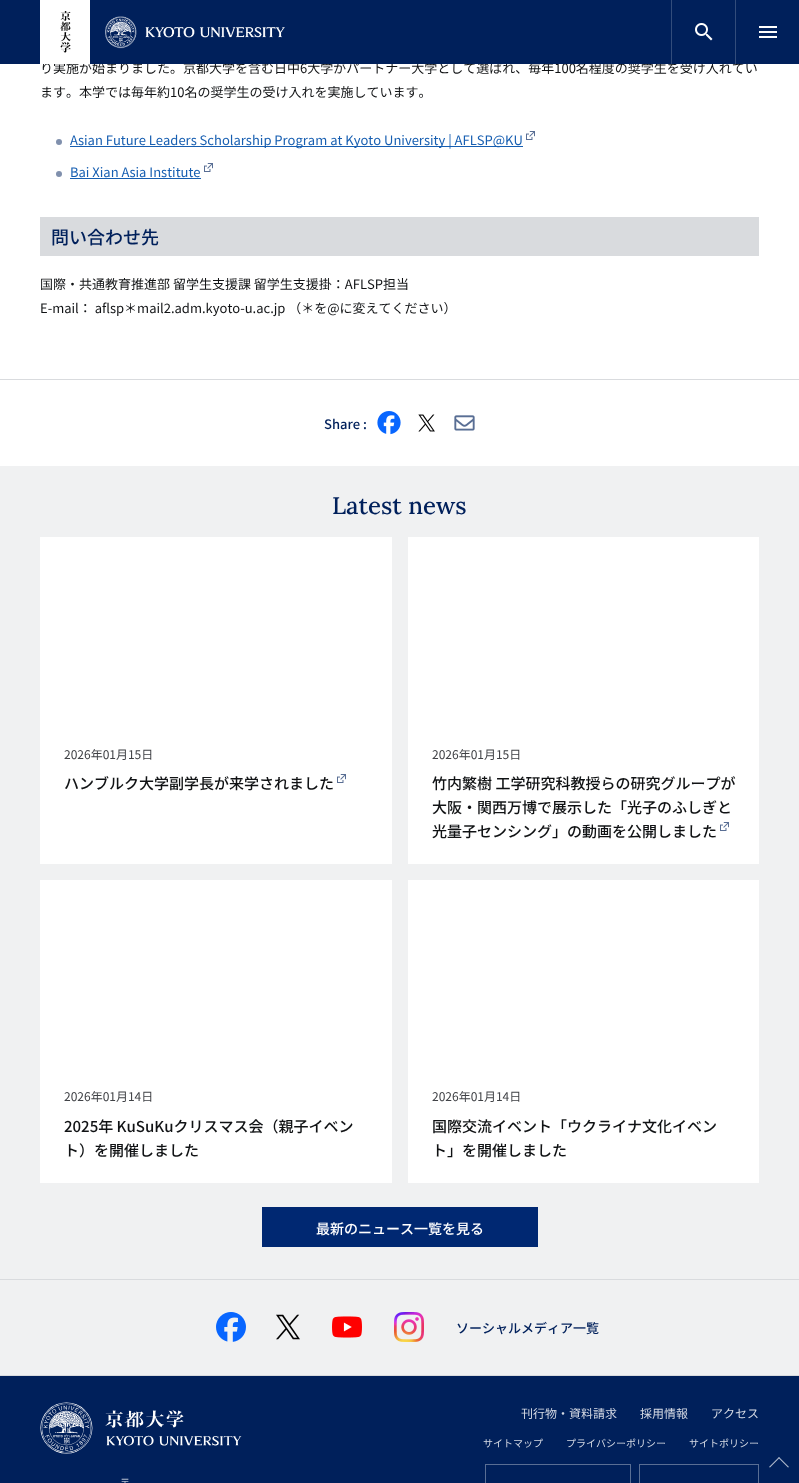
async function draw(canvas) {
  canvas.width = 799;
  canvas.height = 1483;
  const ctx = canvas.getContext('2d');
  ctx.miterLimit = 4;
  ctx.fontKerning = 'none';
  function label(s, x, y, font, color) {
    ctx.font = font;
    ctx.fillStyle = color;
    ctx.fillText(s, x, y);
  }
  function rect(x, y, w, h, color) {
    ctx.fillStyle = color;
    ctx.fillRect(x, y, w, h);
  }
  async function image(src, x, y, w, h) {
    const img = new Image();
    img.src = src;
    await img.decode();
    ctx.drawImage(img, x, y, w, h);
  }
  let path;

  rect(0, 0, 799, 1483, '#fff');
  label('り実施が始まりました。京都大学を含む日中6大学がパートナー大学として選ばれ、毎年100名程度の奨学生を受け入れてい', 40, 73, '13px Noto Sans JP', '#101214');
  rect(0, 0, 799, 64, '#00205b');
  rect(40, 0, 50, 64, '#fff');
  await image('assets/img1.png', 60, 11, 11, 42);
  await image('assets/img2.png', 105, 16, 180, 33);
  rect(671, 0, 1, 64, '#324c7b');
  await image('assets/img3.png', 695, 23, 18, 18);
  rect(735, 0, 1, 64, '#324c7b');
  await image('assets/img4.png', 759, 26, 18, 12);
  label('ます。本学では毎年約10名の奨学生の受け入れを実施しています。', 40, 97, '13px Noto Sans JP', '#101214');
  ctx.fillStyle = '#8090ad';
  ctx.beginPath();
  ctx.arc(59, 142, 3, 0, 2 * Math.PI);
  ctx.fill();
  rect(70, 146, 453, 1, '#165eb1');
  label('Asian Future Leaders Scholarship Program at Kyoto University | AFLSP@KU', 70, 145, '13px Noto Sans JP', '#165eb1');
  await image('assets/img5.png', 526, 131, 9, 9);
  ctx.fillStyle = '#8090ad';
  ctx.beginPath();
  ctx.arc(59, 174, 3, 0, 2 * Math.PI);
  ctx.fill();
  label('Bai Xian Asia Institute', 70, 177, '13px Noto Sans JP', '#165eb1');
  rect(70, 178, 131, 1, '#165eb1');
  await image('assets/img5.png', 204, 163, 9, 9);
  rect(40, 217, 719, 39, '#d9dbde');
  label('問い合わせ先', 51, 244, '500 18px Noto Sans JP', '#00205b');
  label('国際・共通教育推進部 留学生支援課 留学生支援掛：AFLSP担当', 40, 289, '13px Noto Sans JP', '#101214');
  label('E-mail： aflsp＊mail2.adm.kyoto-u.ac.jp （＊を@に変えてください）', 40, 313, '13px Noto Sans JP', '#101214');
  rect(0, 379, 799, 1, '#d9dbde');
  label('Share :', 324, 429, '500 13px Noto Sans JP', '#00205b');
  await image('assets/img6.png', 377, 411, 24, 24);
  await image('assets/img7.png', 418, 414, 17, 18);
  await image('assets/img8.png', 454, 415, 21, 16);
  rect(0, 466, 799, 813, '#f0f1f2');
  label('Latest news', 332, 514, '500 24px Lora', '#00205b');
  rect(40, 537, 352, 327, '#fff');
  label('2026年01月15日', 64, 759, '12px Noto Sans JP', '#3f4145');
  label('ハンブルク大学副学長が来学されました', 64, 789, '500 15px Noto Sans JP', '#101214');
  await image('assets/img5.png', 337, 774, 9, 9);
  rect(408, 537, 351, 327, '#fff');
  label('2026年01月15日', 432, 759, '12px Noto Sans JP', '#3f4145');
  label('竹内繁樹 工学研究科教授らの研究グループが', 432, 789, '500 15px Noto Sans JP', '#101214');
  label('大阪・関西万博で展示した「光子のふしぎと', 432, 813, '500 15px Noto Sans JP', '#101214');
  label('光量子センシング」の動画を公開しました', 432, 837, '500 15px Noto Sans JP', '#101214');
  await image('assets/img5.png', 720, 822, 9, 9);
  rect(40, 880, 352, 303, '#fff');
  label('2026年01月14日', 64, 1101, '12px Noto Sans JP', '#3f4145');
  label('2025年 KuSuKuクリスマス会（親子イベン', 64, 1132, '500 15px Noto Sans JP', '#101214');
  label('ト）を開催しました', 64, 1156, '500 15px Noto Sans JP', '#101214');
  rect(408, 880, 351, 303, '#fff');
  label('2026年01月14日', 432, 1101, '12px Noto Sans JP', '#3f4145');
  label('国際交流イベント「ウクライナ文化イベン', 432, 1132, '500 15px Noto Sans JP', '#101214');
  label('ト」を開催しました', 432, 1156, '500 15px Noto Sans JP', '#101214');
  ctx.strokeStyle = '#002872';
  ctx.strokeRect(262.5, 1207.5, 275, 39);
  rect(263, 1208, 274, 38, '#002872');
  label('最新のニュース一覧を見る', 316, 1234, '500 14px Noto Sans JP', '#fff');
  rect(0, 1280, 799, 95, '#f0f1f2');
  rect(0, 1279, 799, 1, '#d9dbde');
  rect(0, 1375, 799, 1, '#d9dbde');
  await image('assets/img9.png', 216, 1312, 30, 30);
  await image('assets/img10.png', 276, 1314, 24, 26);
  await image('assets/img11.png', 332, 1316, 30, 22);
  await image('assets/img12.png', 394, 1312, 30, 30);
  label('ソーシャルメディア一覧', 456, 1333, '500 13px Noto Sans JP', '#00205b');
  rect(0, 1376, 799, 107, '#00205b');
  await image('assets/img13.png', 40, 1402, 202, 52);
  label('刊行物・資料請求', 521, 1418, '12px Noto Sans JP', '#d5dae4');
  label('採用情報', 640, 1418, '12px Noto Sans JP', '#d5dae4');
  label('アクセス', 711, 1418, '12px Noto Sans JP', '#d5dae4');
  label('サイトマップ', 483, 1447, '10px Noto Sans JP', '#d5dae4');
  label('プライバシーポリシー', 566, 1447, '10px Noto Sans JP', '#d5dae4');
  label('サイトポリシー', 689, 1447, '10px Noto Sans JP', '#d5dae4');
  label('〒', 120, 1486, '10px Noto Sans JP', '#b3bcce');
  ctx.strokeStyle = '#596e94';
  ctx.strokeRect(485.5, 1464.5, 145, 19);
  ctx.strokeRect(639.5, 1464.5, 119, 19);
  ctx.fillStyle = '#b2bbcd';
  path = new Path2D('M769 1467L779 1457L779.5 1458L770 1467.5Z');
  ctx.fill(path);
  path = new Path2D('M778.5 1458L779 1457L789 1467L788 1467.5Z');
  ctx.fill(path);
}

draw(document.querySelector('canvas'));
